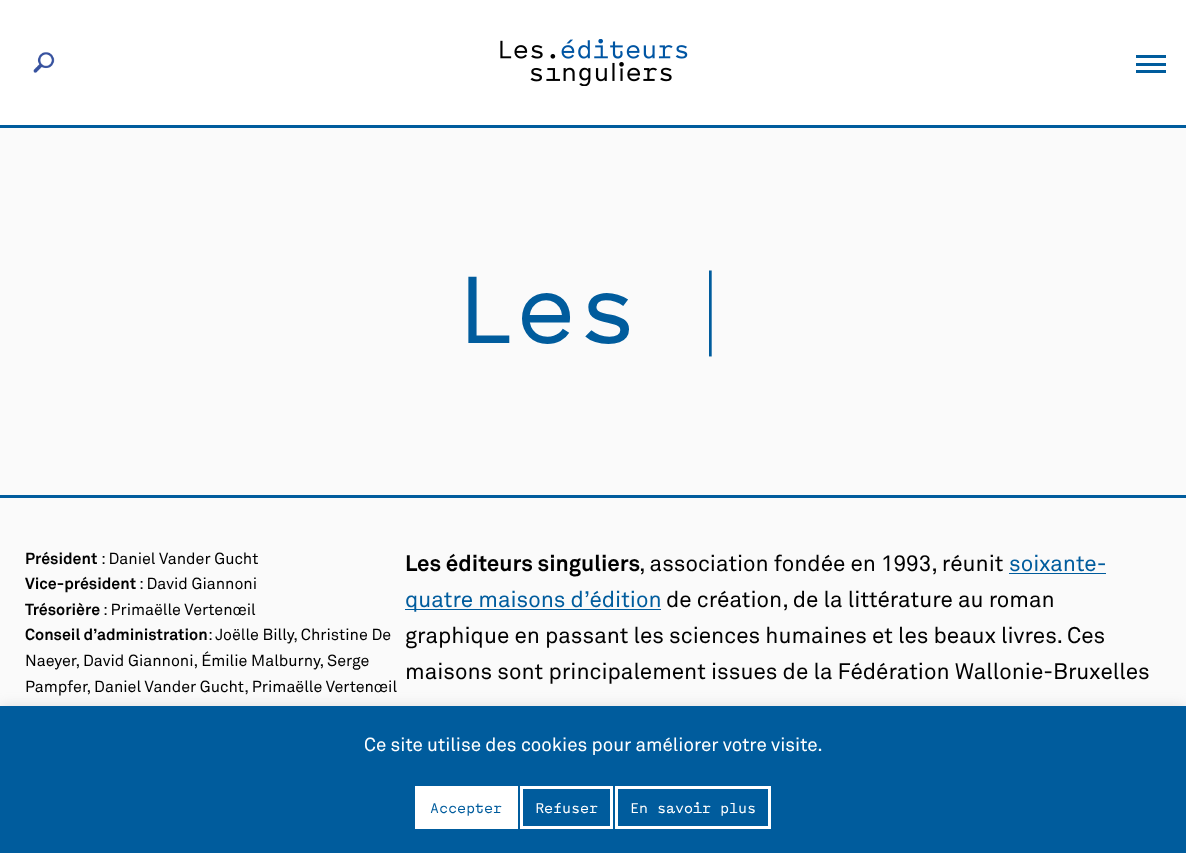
async function draw(canvas) {
  canvas.width = 1186;
  canvas.height = 853;
  const ctx = canvas.getContext('2d');
  ctx.miterLimit = 4;
  ctx.fontKerning = 'normal';
  function label(s, x, y, font, color) {
    ctx.font = font;
    ctx.fillStyle = color;
    ctx.fillText(s, x, y);
  }
  function rect(x, y, w, h, color) {
    ctx.fillStyle = color;
    ctx.fillRect(x, y, w, h);
  }
  async function image(src, x, y, w, h) {
    const img = new Image();
    img.src = src;
    await img.decode();
    ctx.drawImage(img, x, y, w, h);
  }

  rect(0, 0, 1186, 853, '#fafafa');
  rect(0, 125, 1186, 3, '#005c9d');
  rect(0, 0, 1186, 125, '#fff');
  await image('assets/img1.png', 500, 39, 188, 47);
  await image('assets/img2.png', 33, 52, 22, 21);
  rect(1136, 55, 30, 3, '#005c9d');
  rect(1136, 63, 30, 3, '#005c9d');
  rect(1136, 70, 30, 3, '#005c9d');
  rect(0, 495, 1186, 3, '#005c9d');
  label('Les', 454, 343, '102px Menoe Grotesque', '#005c9d');
  label('|', 700, 343, '100 102px Roboto', '#005c9d');
  label('Président', 25, 564, 'bold 16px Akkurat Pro', '#000');
  label(': Daniel Vander Gucht', 101, 564, '16px Akkurat Pro', '#000');
  label('Vice-président', 25, 589, 'bold 16px Akkurat Pro', '#000');
  label(': David Giannoni', 139, 589, '16px Akkurat Pro', '#000');
  label('Trésorière', 25, 615, 'bold 16px Akkurat Pro', '#000');
  label(': Primaëlle Vertenœil', 103, 615, '16px Akkurat Pro', '#000');
  label('Conseil d’administration', 25, 640, 'bold 16px Akkurat Pro', '#000');
  label(': Joëlle Billy, Christine De', 208, 640, '16px Akkurat Pro', '#000');
  label('Naeyer, David Giannoni, Émilie Malburny, Serge', 25, 666, '16px Akkurat Pro', '#000');
  label('Pampfer, Daniel Vander Gucht, Primaëlle Vertenœil', 25, 692, '16px Akkurat Pro', '#000');
  label('Les éditeurs singuliers', 405, 571, 'bold 22.4px Akkurat Pro', '#000');
  label(', association fondée en 1993, réunit', 639, 571, '22.4px Akkurat Pro', '#000');
  label('soixante-', 1009, 571, '22.4px Akkurat Pro', '#005c9d');
  rect(1009, 573, 97, 1, '#005c9d');
  rect(405, 609, 256, 1, '#005c9d');
  label('quatre maisons d’édition', 405, 607, '22.4px Akkurat Pro', '#005c9d');
  label('de création, de la littérature au roman', 666, 607, '22.4px Akkurat Pro', '#000');
  label('graphique en passant les sciences humaines et les beaux livres. Ces', 405, 643, '22.4px Akkurat Pro', '#000');
  label('maisons sont principalement issues de la Fédération Wallonie-Bruxelles', 405, 679, '22.4px Akkurat Pro', '#000');
  ctx.fillStyle = '#acabab4d';
  ctx.filter = 'blur(6px)';
  ctx.beginPath();
  ctx.rect(0, 705, 1186, 148);
  ctx.fill();
  ctx.filter = 'none';
  rect(0, 706, 1186, 147, '#005c9d');
  label('Ce site utilise des cookies pour améliorer votre visite.', 364, 751, '18.75px Akkurat Pro', '#fff');
  rect(415, 786, 103, 43, '#fff');
  label('Accepter', 430, 813, '15px Menoe Grotesque', '#005c9d');
  ctx.strokeStyle = '#fff';
  ctx.lineWidth = 3;
  ctx.strokeRect(521.5, 787.5, 90, 40);
  label('Refuser', 535, 813, '15px Menoe Grotesque', '#fff');
  ctx.strokeRect(616.5, 787.5, 153, 40);
  label('En savoir plus', 630, 813, '15px Menoe Grotesque', '#fff');
}

draw(document.querySelector('canvas'));
